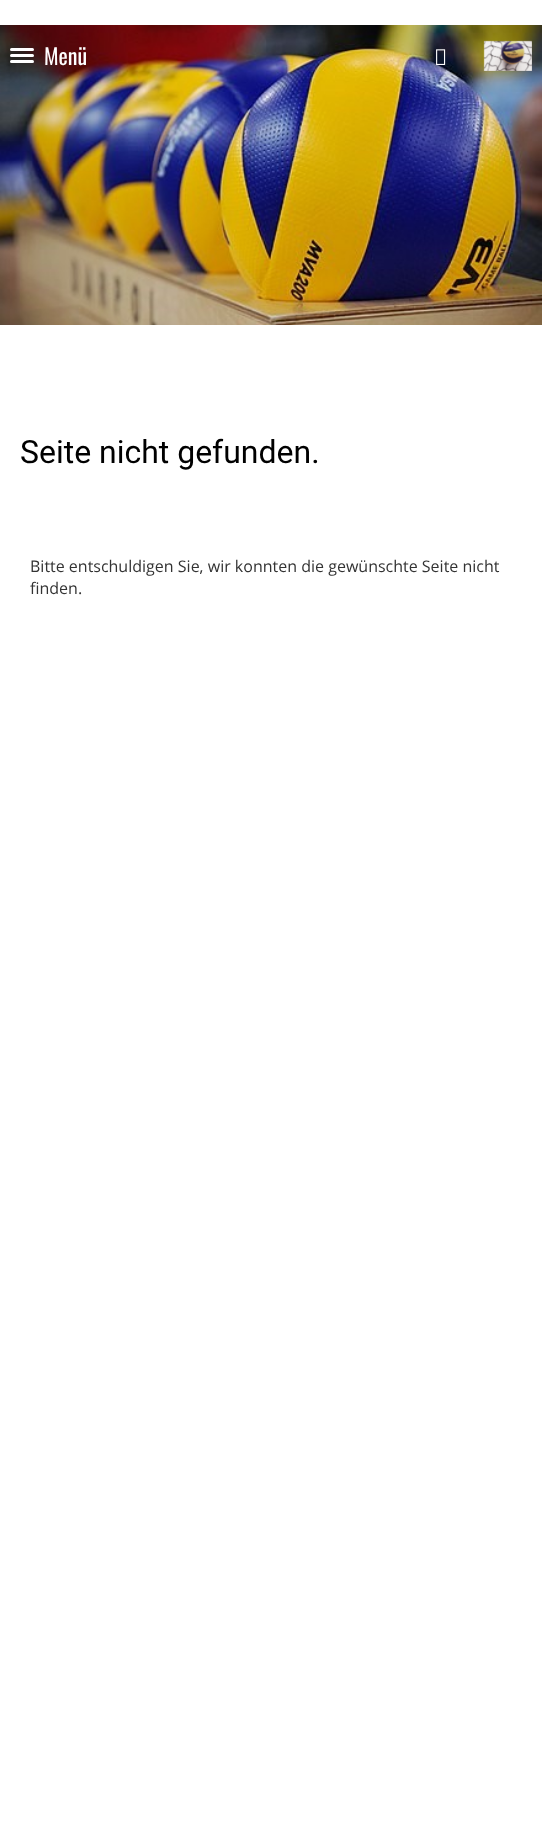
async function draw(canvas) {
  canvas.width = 542;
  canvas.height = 1827;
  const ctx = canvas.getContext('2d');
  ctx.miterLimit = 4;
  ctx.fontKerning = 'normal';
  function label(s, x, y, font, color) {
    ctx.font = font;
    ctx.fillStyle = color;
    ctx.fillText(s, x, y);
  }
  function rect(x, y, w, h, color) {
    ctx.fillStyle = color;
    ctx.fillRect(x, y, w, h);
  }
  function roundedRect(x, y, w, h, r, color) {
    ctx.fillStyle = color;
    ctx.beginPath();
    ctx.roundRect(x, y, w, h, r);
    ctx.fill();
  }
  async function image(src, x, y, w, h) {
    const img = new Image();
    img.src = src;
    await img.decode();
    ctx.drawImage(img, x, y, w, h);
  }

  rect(0, 0, 542, 1827, '#fff');
  await image('assets/img3.png', 0, 25, 542, 300);
  roundedRect(10, 48, 24, 3, 1.5, '#fff');
  roundedRect(10, 54, 24, 3, 1.5, '#fff');
  roundedRect(10, 60, 24, 3, 1.5, '#fff');
  label('Menü', 44, 65, '22px Oswald', '#fff');
  await image('assets/img1.png', 436, 49, 10, 16);
  await image('assets/img2.png', 483, 40, 49, 31);
  label('Seite nicht gefunden.', 20, 463, '32px Roboto', '#000');
  label('Bitte entschuldigen Sie, wir konnten die gewünschte Seite nicht', 30, 572, '16px Open Sans', '#333');
  label('finden.', 30, 594, '16px Open Sans', '#333');
}

draw(document.querySelector('canvas'));
